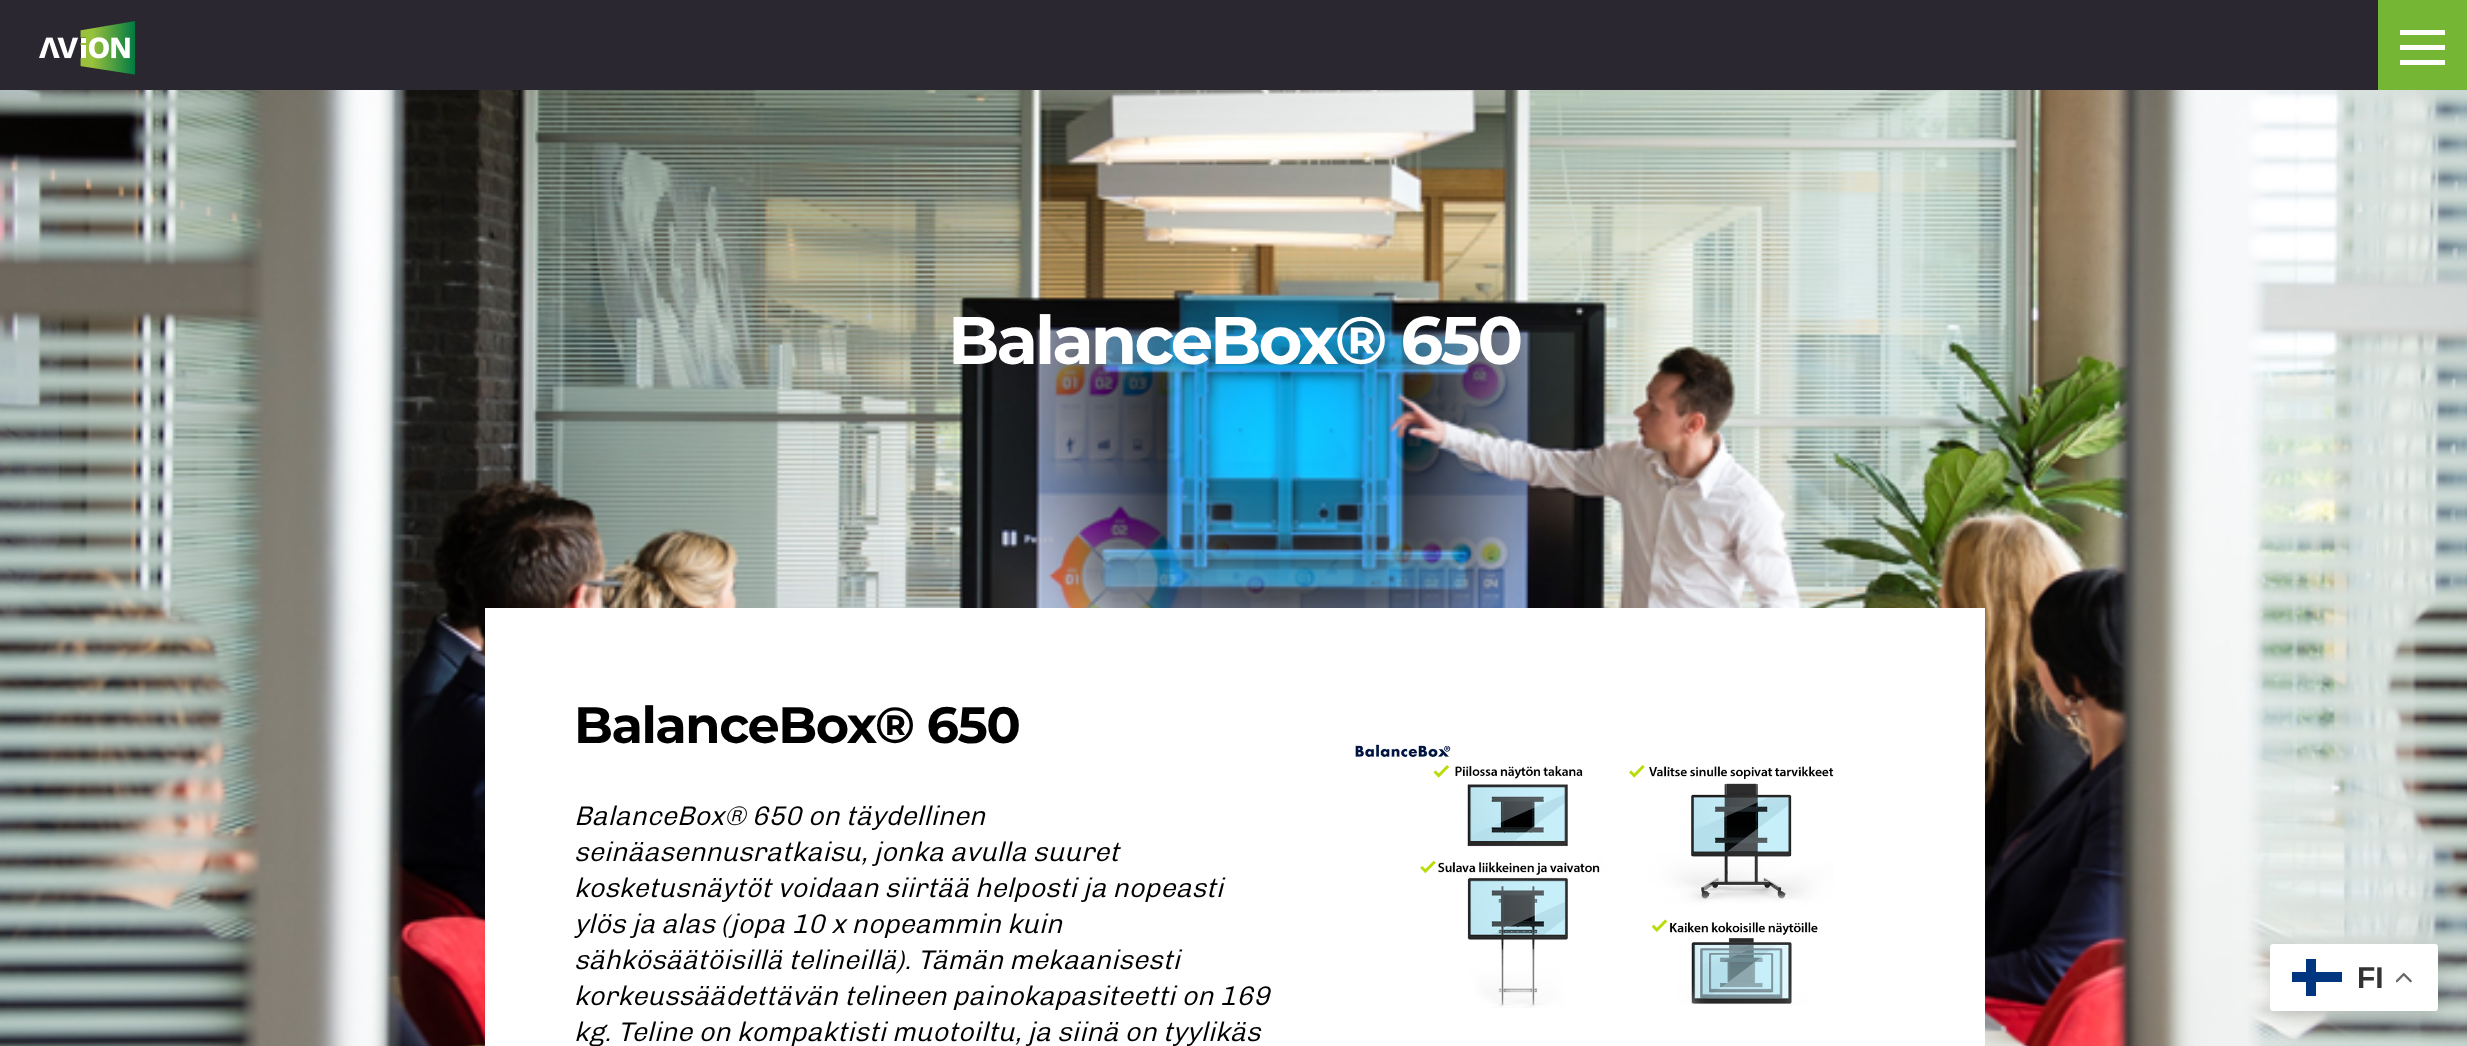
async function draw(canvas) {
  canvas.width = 2467;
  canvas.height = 1046;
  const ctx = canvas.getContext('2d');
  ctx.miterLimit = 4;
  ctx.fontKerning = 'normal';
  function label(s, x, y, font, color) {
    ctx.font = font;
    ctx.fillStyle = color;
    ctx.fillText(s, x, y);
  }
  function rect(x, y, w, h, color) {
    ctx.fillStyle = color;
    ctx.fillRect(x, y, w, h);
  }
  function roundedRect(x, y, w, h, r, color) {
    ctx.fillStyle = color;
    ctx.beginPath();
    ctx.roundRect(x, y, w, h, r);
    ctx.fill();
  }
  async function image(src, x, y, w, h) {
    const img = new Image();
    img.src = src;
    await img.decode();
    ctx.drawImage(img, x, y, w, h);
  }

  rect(0, 0, 2467, 1046, '#2a2731');
  await image('assets/img1.png', 39, 21, 96, 54);
  rect(2378, 0, 89, 90, '#75b734');
  rect(2400, 30, 45, 5, '#fff');
  rect(2400, 45, 45, 5, '#fff');
  rect(2400, 60, 45, 5, '#fff');
  await image('assets/img2.png', 0, 90, 2467, 956);
  ctx.letterSpacing = '-3px';
  label('BalanceBox® 650', 948, 364, 'bold 67.25px Montserrat', '#fff');
  rect(485, 608, 1500, 438, '#fff');
  ctx.letterSpacing = '-1.5px';
  label('BalanceBox® 650', 574, 743, 'bold 51px Montserrat', '#000');
  ctx.letterSpacing = '0px';
  label('BalanceBox® 650 on täydellinen', 574, 825, 'italic 300 27px Chivo', '#000');
  label('seinäasennusratkaisu, jonka avulla suuret', 574, 861, 'italic 300 27px Chivo', '#000');
  label('kosketusnäytöt voidaan siirtää helposti ja nopeasti', 574, 897, 'italic 300 27px Chivo', '#000');
  label('ylös ja alas (jopa 10 x nopeammin kuin', 574, 933, 'italic 300 27px Chivo', '#000');
  label('sähkösäätöisillä telineillä). Tämän mekaanisesti', 574, 969, 'italic 300 27px Chivo', '#000');
  label('korkeussäädettävän telineen painokapasiteetti on 169', 574, 1005, 'italic 300 27px Chivo', '#000');
  label('kg. Teline on kompaktisti muotoiltu, ja siinä on tyylikäs', 574, 1041, 'italic 300 27px Chivo', '#000');
  await image('assets/img3.png', 1355, 744, 479, 264);
  ctx.fillStyle = '#00000026';
  ctx.filter = 'blur(11px)';
  ctx.beginPath();
  ctx.roundRect(2270, 951, 168, 68, 3);
  ctx.fill();
  ctx.filter = 'none';
  roundedRect(2270, 944, 168, 67, 3, '#fff');
  rect(2292, 972, 50, 10, '#003580');
  rect(2306, 959, 10, 37, '#003580');
  label('FI', 2357, 988, 'bold 30px Liberation Sans', '#333');
  await image('assets/img4.png', 2396, 972, 16, 11);
}

draw(document.querySelector('canvas'));
